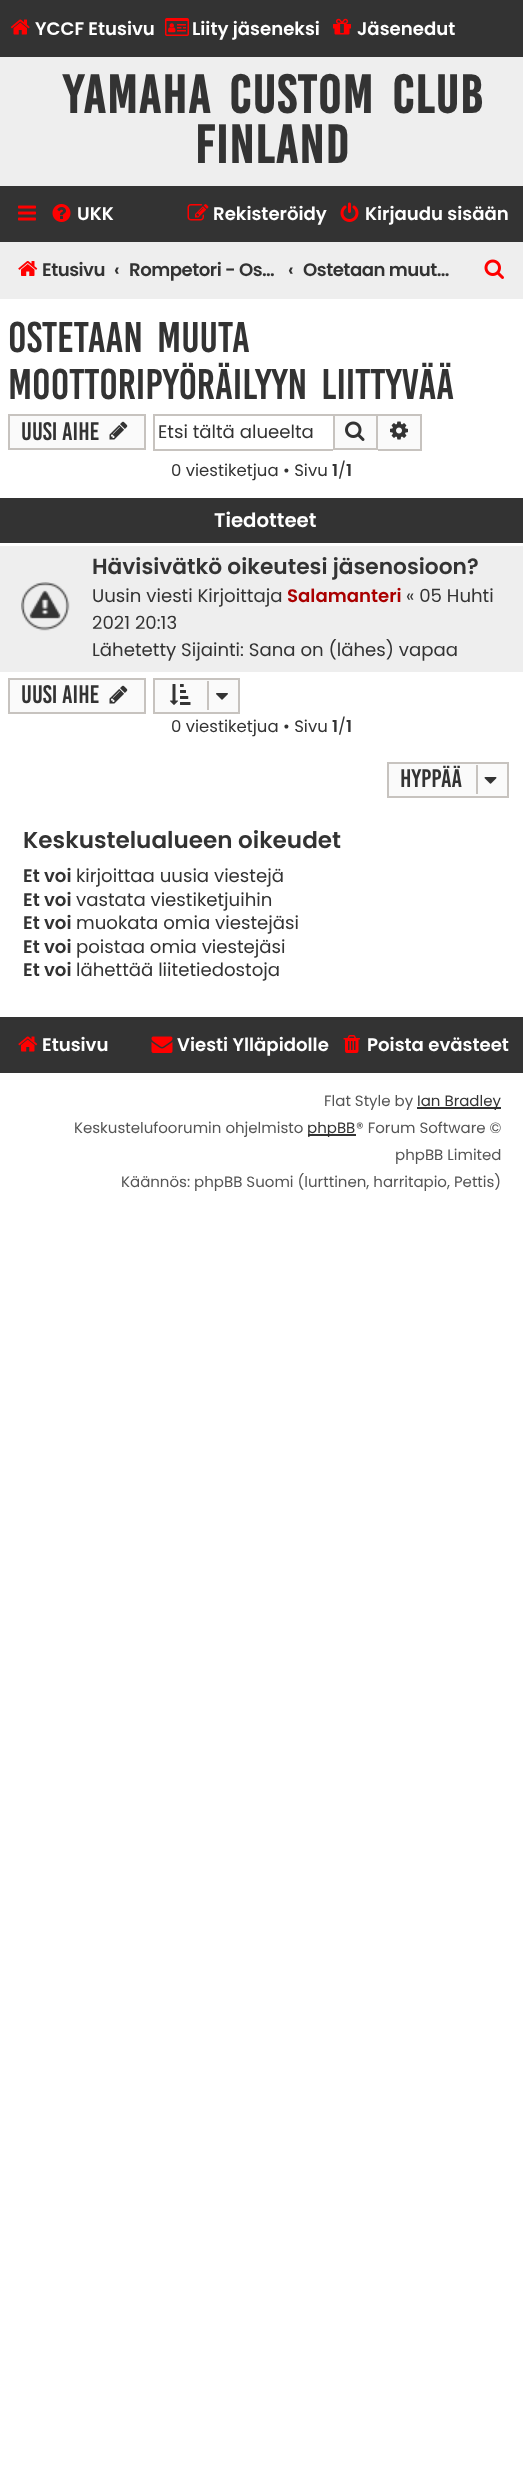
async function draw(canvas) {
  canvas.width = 523;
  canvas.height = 2467;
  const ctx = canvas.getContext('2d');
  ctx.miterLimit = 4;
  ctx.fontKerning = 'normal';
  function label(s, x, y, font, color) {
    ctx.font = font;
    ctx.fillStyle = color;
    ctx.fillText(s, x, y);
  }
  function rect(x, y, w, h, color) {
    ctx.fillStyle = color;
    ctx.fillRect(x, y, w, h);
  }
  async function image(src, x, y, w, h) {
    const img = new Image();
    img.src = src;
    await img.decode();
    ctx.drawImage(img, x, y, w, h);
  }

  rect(0, 0, 523, 2467, '#fff');
  rect(0, 0, 523, 57, '#333');
  await image('assets/img1.png', 10, 19, 20, 16);
  label('YCCF Etusivu', 35, 35, '600 18.15px Poppins', '#fff');
  await image('assets/img2.png', 165, 18, 24, 18);
  label('Liity jäseneksi', 192, 35, '600 18.15px Poppins', '#fff');
  await image('assets/img3.png', 333, 18, 18, 17);
  label('Jäsenedut', 357, 35, '600 18.15px Poppins', '#fff');
  rect(0, 57, 523, 129, '#eee');
  ctx.letterSpacing = '1.5px';
  ctx.wordSpacing = '6px';
  label('Yamaha Custom Club', 63, 113, 'bold 41.25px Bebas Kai', '#333');
  ctx.wordSpacing = '0px';
  label('Finland', 195, 163, 'bold 41.25px Bebas Kai', '#333');
  rect(0, 186, 523, 56, '#333');
  await image('assets/img4.png', 18, 205, 18, 16);
  await image('assets/img5.png', 52, 204, 19, 18);
  ctx.letterSpacing = '0px';
  label('UKK', 77, 220, '600 18.15px Poppins', '#fff');
  await image('assets/img6.png', 187, 204, 22, 17);
  label('Rekisteröidy', 213, 220, '600 18.15px Poppins', '#fff');
  await image('assets/img7.png', 340, 202, 19, 20);
  label('Kirjaudu sisään', 365, 220, '600 18.15px Poppins', '#fff');
  rect(0, 242, 523, 57, '#eee');
  await image('assets/img8.png', 18, 261, 20, 15);
  ctx.letterSpacing = '-0.5px';
  label('Etusivu', 42, 276, '600 18.15px Poppins', '#333');
  ctx.letterSpacing = '0px';
  label('‹', 114, 276, '600 18.15px Poppins', '#333');
  ctx.letterSpacing = '-0.5px';
  label('Rompetori - Os…', 129, 276, '600 18.15px Poppins', '#333');
  ctx.letterSpacing = '0px';
  label('‹', 288, 276, '600 18.15px Poppins', '#333');
  ctx.letterSpacing = '-0.5px';
  label('Ostetaan muut…', 303, 276, '600 18.15px Poppins', '#333');
  await image('assets/img9.png', 484, 259, 20, 20);
  ctx.letterSpacing = '0px';
  ctx.wordSpacing = '6px';
  label('Ostetaan muuta', 8, 352, '33px Bebas Kai', '#333');
  label('moottoripyöräilyyn liittyvää', 8, 399, '33px Bebas Kai', '#333');
  ctx.fillStyle = '#fafafa';
  ctx.beginPath();
  ctx.rect(9, 415, 136, 34);
  ctx.fill();
  ctx.strokeStyle = '#c7c3bf';
  ctx.lineWidth = 2;
  ctx.stroke();
  ctx.wordSpacing = '0px';
  label('Uusi Aihe', 21, 440, '19.5px Bebas Kai', '#333');
  await image('assets/img10.png', 109, 421, 19, 19);
  rect(153, 414, 180, 2, '#c7c3bf');
  rect(153, 449, 180, 2, '#c7c3bf');
  rect(153, 414, 2, 36, '#c7c3bf');
  label('Etsi tältä alueelta', 158, 438, '18.15px Poppins', '#333');
  ctx.fillStyle = '#fafafa';
  ctx.beginPath();
  ctx.rect(334, 415, 43, 34);
  ctx.fill();
  ctx.stroke();
  await image('assets/img11.png', 345, 421, 20, 20);
  rect(378, 416, 42, 33, '#fafafa');
  rect(378, 414, 44, 2, '#c7c3bf');
  rect(420, 414, 2, 36, '#c7c3bf');
  rect(378, 449, 44, 2, '#c7c3bf');
  await image('assets/img12.png', 390, 421, 18, 19);
  label('0 viestiketjua • Sivu', 171, 476, '16.5px Poppins', '#333');
  label('1', 332, 476, '600 16.5px Poppins', '#333');
  label('/', 338, 476, '16.5px Poppins', '#333');
  label('1', 346, 476, '600 16.5px Poppins', '#333');
  rect(0, 498, 523, 45, '#333');
  label('Tiedotteet', 214, 527, '600 19.75px Poppins', '#fff');
  rect(0, 546, 523, 126, '#eee');
  await image('assets/img13.png', 21, 582, 49, 49);
  label('Hävisivätkö oikeutesi jäsenosioon?', 92, 574, '600 21.75px Poppins', '#333');
  label('Uusin viesti Kirjoittaja', 92, 602, '18.15px Poppins', '#333');
  label('Salamanteri', 287, 602, '600 18.15px Poppins', '#a00');
  label('« 05 Huhti', 406, 602, '18.15px Poppins', '#333');
  label('2021 20:13', 92, 629, '18.15px Poppins', '#333');
  label('Lähetetty Sijainti: Sana on (lähes) vapaa', 92, 656, '18.15px Poppins', '#333');
  ctx.fillStyle = '#fafafa';
  ctx.beginPath();
  ctx.rect(9, 679, 136, 34);
  ctx.fill();
  ctx.stroke();
  label('Uusi Aihe', 21, 703, '19.5px Bebas Kai', '#333');
  await image('assets/img10.png', 109, 685, 19, 19);
  ctx.fillStyle = '#fafafa';
  ctx.beginPath();
  ctx.rect(154, 679, 85, 34);
  ctx.fill();
  ctx.stroke();
  await image('assets/img14.png', 169, 684, 22, 21);
  rect(207, 681, 2, 29, '#c7c3bf');
  await image('assets/img15.png', 216, 693, 12, 7);
  label('0 viestiketjua • Sivu', 171, 732, '16.5px Poppins', '#333');
  label('1', 332, 732, '600 16.5px Poppins', '#333');
  label('/', 338, 732, '16.5px Poppins', '#333');
  label('1', 346, 732, '600 16.5px Poppins', '#333');
  ctx.fillStyle = '#fafafa';
  ctx.beginPath();
  ctx.rect(388, 763, 120, 34);
  ctx.fill();
  ctx.stroke();
  label('Hyppää', 400, 787, '19.5px Bebas Kai', '#333');
  rect(476, 765, 2, 29, '#c7c3bf');
  await image('assets/img16.png', 484, 777, 13, 7);
  label('Keskustelualueen oikeudet', 23, 848, '600 23.1px Poppins', '#333');
  label('Et voi', 23, 882, '600 18.15px Poppins', '#333');
  label('kirjoittaa uusia viestejä', 76, 882, '18.15px Poppins', '#333');
  label('Et voi', 23, 906, '600 18.15px Poppins', '#333');
  label('vastata viestiketjuihin', 76, 906, '18.15px Poppins', '#333');
  label('Et voi', 23, 929, '600 18.15px Poppins', '#333');
  label('muokata omia viestejäsi', 76, 929, '18.15px Poppins', '#333');
  label('Et voi', 23, 953, '600 18.15px Poppins', '#333');
  label('poistaa omia viestejäsi', 76, 953, '18.15px Poppins', '#333');
  label('Et voi', 23, 976, '600 18.15px Poppins', '#333');
  label('lähettää liitetiedostoja', 76, 976, '18.15px Poppins', '#333');
  rect(0, 1017, 523, 56, '#333');
  await image('assets/img17.png', 18, 1036, 20, 16);
  label('Etusivu', 42, 1051, '600 18.15px Poppins', '#fff');
  await image('assets/img18.png', 151, 1036, 22, 17);
  label('Viesti Ylläpidolle', 177, 1051, '600 18.15px Poppins', '#fff');
  await image('assets/img19.png', 343, 1035, 17, 18);
  label('Poista evästeet', 367, 1051, '600 18.15px Poppins', '#fff');
  label('Flat Style by', 324, 1106, '15px Poppins', '#555');
  rect(417, 1107, 84, 2, '#333');
  label('Ian Bradley', 417, 1106, '15px Poppins', '#333');
  label('Keskustelufoorumin ohjelmisto', 74, 1133, '15px Poppins', '#555');
  rect(308, 1134, 48, 2, '#333');
  label('phpBB', 307, 1133, '15px Poppins', '#333');
  label('® Forum Software ©', 356, 1133, '15px Poppins', '#555');
  label('phpBB Limited', 395, 1160, '15px Poppins', '#555');
  label('Käännös: phpBB Suomi (lurttinen, harritapio, Pettis)', 121, 1187, '15px Poppins', '#555');
}

draw(document.querySelector('canvas'));
